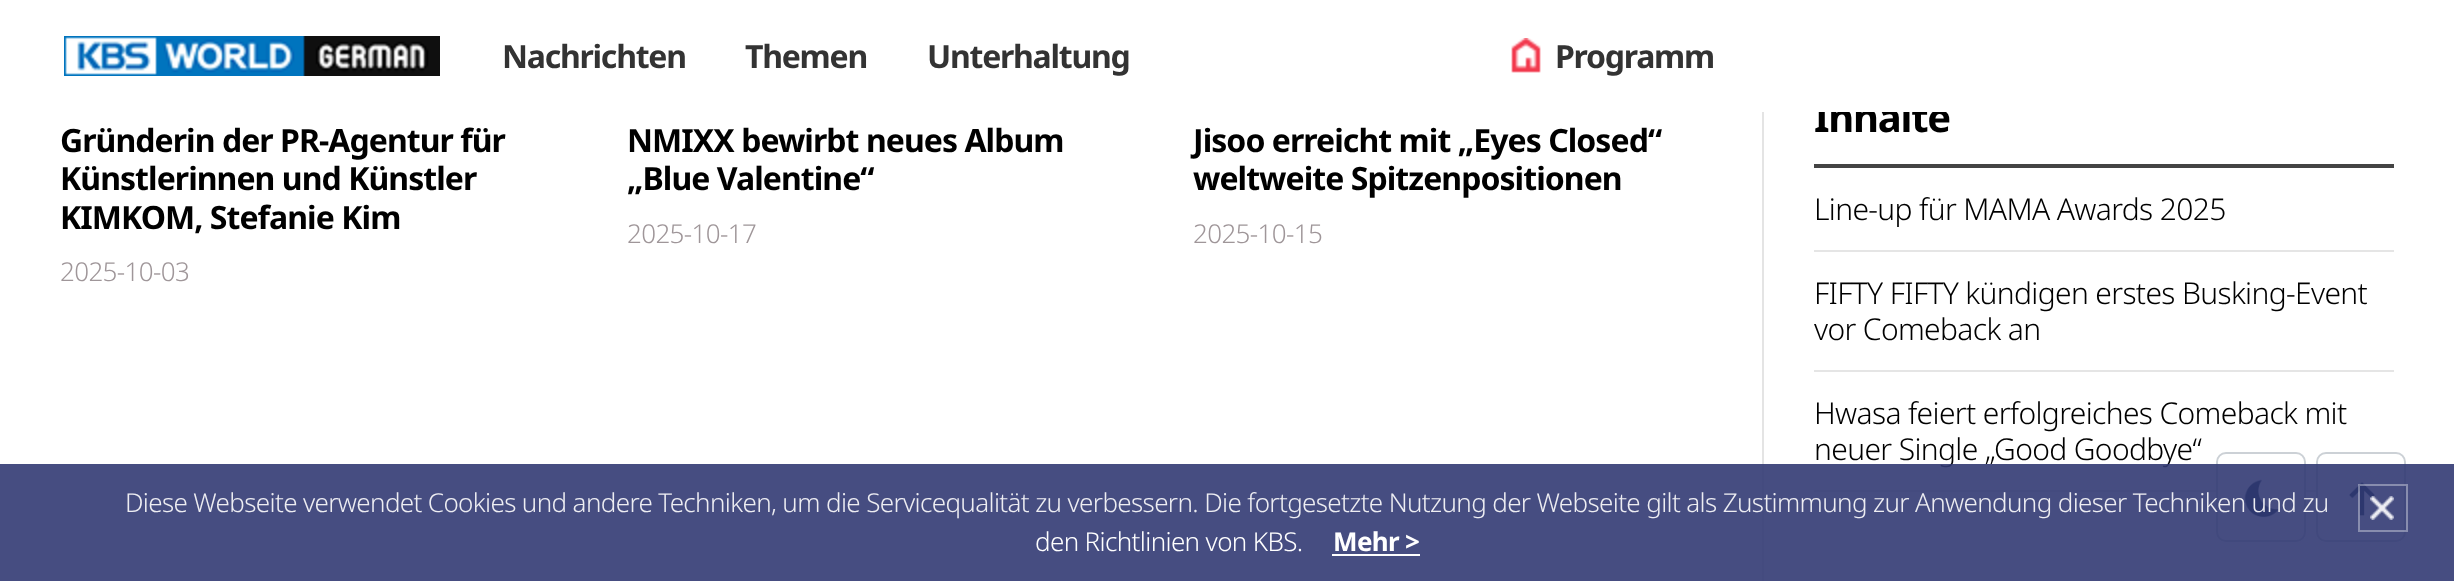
async function draw(canvas) {
  canvas.width = 2454;
  canvas.height = 581;
  const ctx = canvas.getContext('2d');
  ctx.miterLimit = 4;
  ctx.fontKerning = 'normal';
  function label(s, x, y, font, color) {
    ctx.font = font;
    ctx.fillStyle = color;
    ctx.fillText(s, x, y);
  }
  function rect(x, y, w, h, color) {
    ctx.fillStyle = color;
    ctx.fillRect(x, y, w, h);
  }
  async function image(src, x, y, w, h) {
    const img = new Image();
    img.src = src;
    await img.decode();
    ctx.drawImage(img, x, y, w, h);
  }

  rect(0, 0, 2454, 581, '#fff');
  rect(1762, 112, 2, 469, '#e4e4e4');
  ctx.letterSpacing = '-1.25px';
  label('Inhalte', 1814, 132, 'bold 40px Noto Sans', '#000');
  rect(1815, 101, 132, 11, '#fff');
  await image('assets/img1.png', 64, 36, 376, 40);
  label('Nachrichten', 502, 68, 'bold 32px Noto Sans', '#333');
  label('Themen', 745, 68, 'bold 32px Noto Sans', '#333');
  label('Unterhaltung', 927, 68, 'bold 32px Noto Sans', '#333');
  await image('assets/img2.png', 1511, 38, 30, 35);
  label('Programm', 1555, 68, 'bold 32px Noto Sans', '#333');
  rect(1814, 490, 502, 2, '#e5e5e5');
  ctx.fillStyle = '#fff';
  ctx.beginPath();
  ctx.roundRect(2217, 453, 88, 88, 9);
  ctx.fill();
  ctx.strokeStyle = '#ccd1d6';
  ctx.lineWidth = 2;
  ctx.stroke();
  await image('assets/img3.png', 2244, 479, 36, 39);
  ctx.beginPath();
  ctx.roundRect(2317, 453, 88, 88, 9);
  ctx.stroke();
  await image('assets/img4.png', 2349, 482, 26, 34);
  ctx.letterSpacing = '-0.95px';
  label('Gründerin der PR-Agentur für', 60, 152, 'bold 32px Noto Sans', '#000');
  label('Künstlerinnen und Künstler', 60, 190, 'bold 32px Noto Sans', '#000');
  label('KIMKOM, Stefanie Kim', 60, 229, 'bold 32px Noto Sans', '#000');
  ctx.letterSpacing = '-0.64px';
  label('2025-10-03', 60, 281, '300 26px Noto Sans', '#9f9699');
  ctx.letterSpacing = '-0.95px';
  label('NMIXX bewirbt neues Album', 627, 152, 'bold 32px Noto Sans', '#000');
  label('„Blue Valentine“', 627, 190, 'bold 32px Noto Sans', '#000');
  ctx.letterSpacing = '-0.64px';
  label('2025-10-17', 627, 243, '300 26px Noto Sans', '#9f9699');
  ctx.letterSpacing = '-0.95px';
  label('Jisoo erreicht mit „Eyes Closed“', 1193, 152, 'bold 32px Noto Sans', '#000');
  label('weltweite Spitzenpositionen', 1193, 190, 'bold 32px Noto Sans', '#000');
  ctx.letterSpacing = '-0.64px';
  label('2025-10-15', 1193, 243, '300 26px Noto Sans', '#9f9699');
  rect(1814, 164, 580, 4, '#444');
  rect(1814, 250, 580, 2, '#e5e5e5');
  label('Line-up für MAMA Awards 2025', 1814, 220, '300 30px Noto Sans', '#000');
  rect(1814, 370, 580, 2, '#e5e5e5');
  label('FIFTY FIFTY kündigen erstes Busking-Event', 1814, 304, '300 30px Noto Sans', '#000');
  label('vor Comeback an', 1814, 340, '300 30px Noto Sans', '#000');
  label('Hwasa feiert erfolgreiches Comeback mit', 1814, 424, '300 30px Noto Sans', '#000');
  label('neuer Single „Good Goodbye“', 1814, 460, '300 30px Noto Sans', '#000');
  rect(0, 464, 2454, 117, '#323a73e6');
  label('Diese Webseite verwendet Cookies und andere Techniken, um die Servicequalität zu verbessern. Die fortgesetzte Nutzung der Webseite gilt als Zustimmung zur Anwendung dieser Techniken und zu', 125, 512, '300 26px Noto Sans', '#ededf2');
  label('den Richtlinien von KBS.', 1035, 551, '300 26px Noto Sans', '#fff');
  label('Mehr >', 1333, 551, 'bold 26px Noto Sans', '#fff');
  rect(1332, 554, 88, 2, '#fff');
  await image('assets/img5.png', 2370, 496, 24, 24);
  ctx.strokeStyle = '#ffffff5c';
  ctx.strokeRect(2359, 485, 48, 46);
}

draw(document.querySelector('canvas'));
